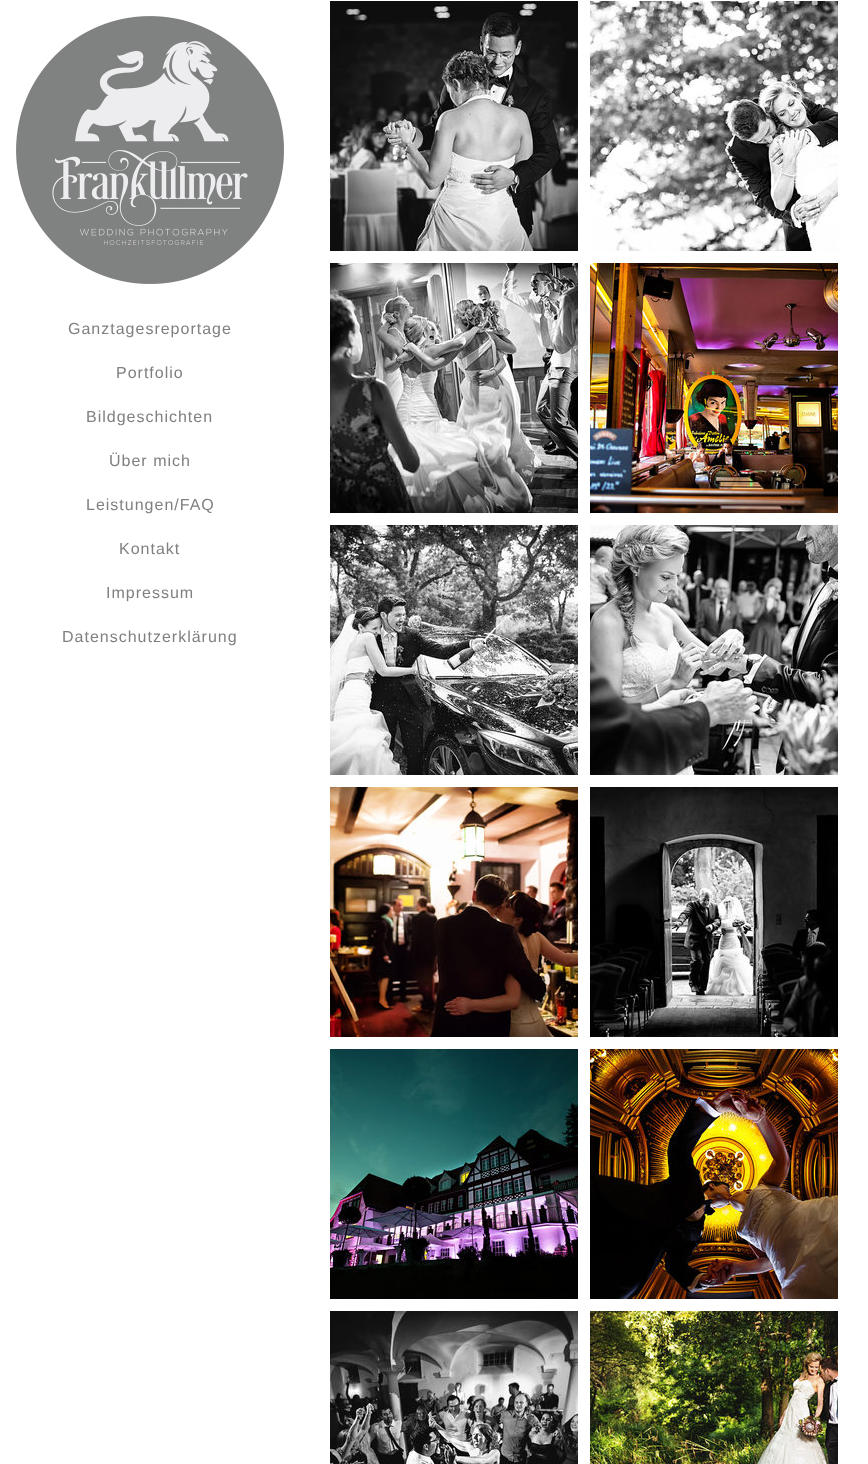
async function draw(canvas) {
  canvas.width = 868;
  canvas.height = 1464;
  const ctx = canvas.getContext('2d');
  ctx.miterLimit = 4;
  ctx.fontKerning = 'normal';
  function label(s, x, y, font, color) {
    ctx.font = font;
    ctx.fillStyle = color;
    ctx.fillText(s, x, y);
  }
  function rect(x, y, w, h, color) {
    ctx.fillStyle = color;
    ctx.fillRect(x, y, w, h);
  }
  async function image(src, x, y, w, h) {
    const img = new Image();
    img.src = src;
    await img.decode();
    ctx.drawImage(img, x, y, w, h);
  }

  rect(0, 0, 868, 1464, '#fff');
  await image('assets/img1.png', 16, 16, 268, 268);
  ctx.letterSpacing = '1px';
  label('Ganztagesreportage', 68, 334, '16px Liberation Sans', '#808080');
  label('Portfolio', 116, 378, '16px Liberation Sans', '#808080');
  label('Bildgeschichten', 86, 422, '16px Liberation Sans', '#808080');
  label('Über mich', 109, 466, '16px Liberation Sans', '#808080');
  label('Leistungen/FAQ', 86, 510, '16px Liberation Sans', '#808080');
  label('Kontakt', 119, 554, '16px Liberation Sans', '#808080');
  label('Impressum', 106, 598, '16px Liberation Sans', '#808080');
  label('Datenschutzerklärung', 62, 642, '16px Liberation Sans', '#808080');
  await image('assets/img2.png', 330, 1, 248, 250);
  await image('assets/img3.png', 590, 1, 248, 250);
  await image('assets/img4.png', 330, 263, 248, 250);
  await image('assets/img5.png', 590, 263, 248, 250);
  await image('assets/img6.png', 330, 525, 248, 250);
  await image('assets/img7.png', 590, 525, 248, 250);
  await image('assets/img8.png', 330, 787, 248, 250);
  await image('assets/img9.png', 590, 787, 248, 250);
  await image('assets/img10.png', 330, 1049, 248, 250);
  await image('assets/img11.png', 590, 1049, 248, 250);
  await image('assets/img12.png', 330, 1311, 248, 153);
  await image('assets/img13.png', 590, 1311, 248, 153);
}

draw(document.querySelector('canvas'));
